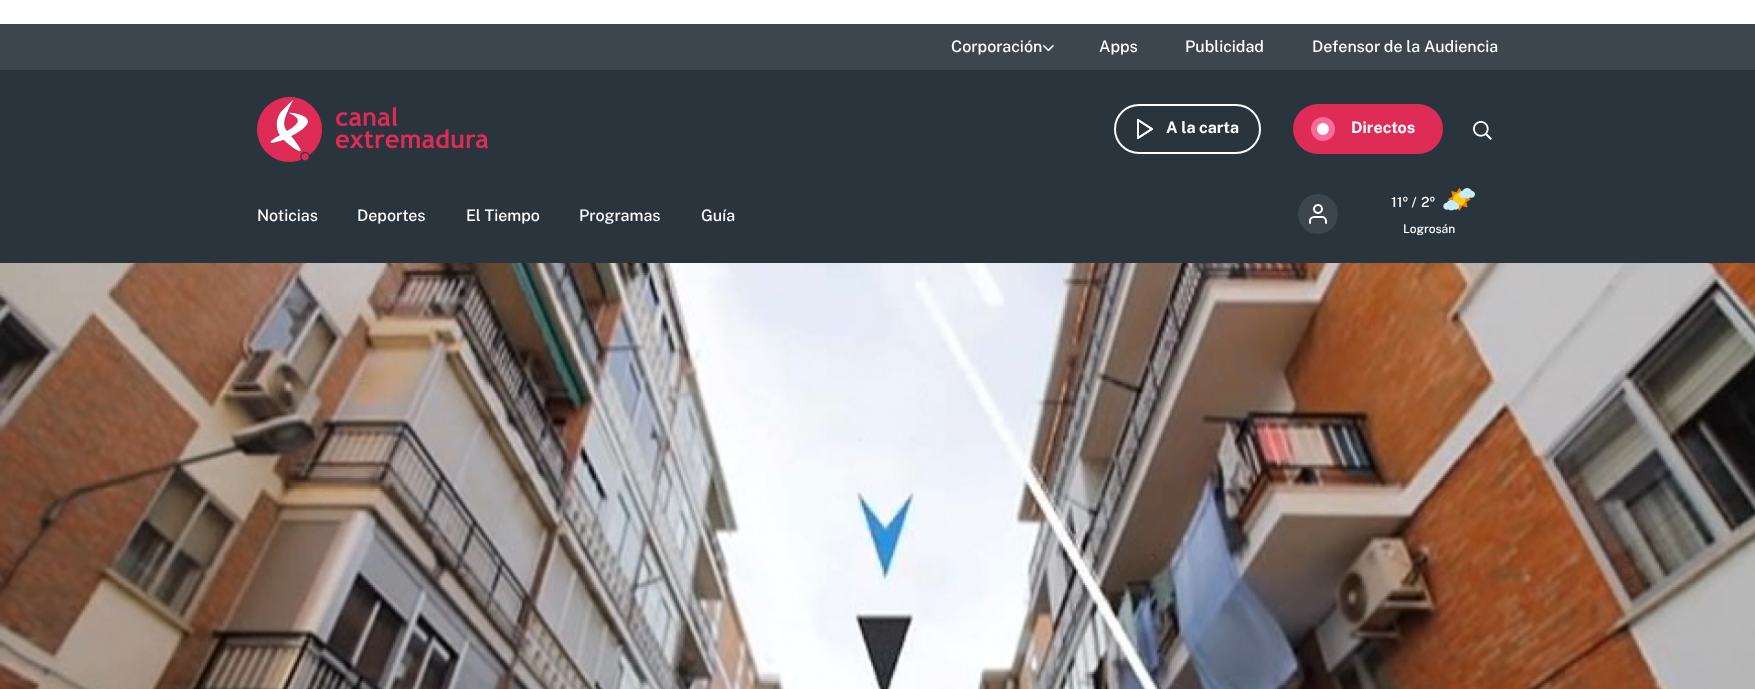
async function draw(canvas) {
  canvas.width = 1755;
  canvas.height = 689;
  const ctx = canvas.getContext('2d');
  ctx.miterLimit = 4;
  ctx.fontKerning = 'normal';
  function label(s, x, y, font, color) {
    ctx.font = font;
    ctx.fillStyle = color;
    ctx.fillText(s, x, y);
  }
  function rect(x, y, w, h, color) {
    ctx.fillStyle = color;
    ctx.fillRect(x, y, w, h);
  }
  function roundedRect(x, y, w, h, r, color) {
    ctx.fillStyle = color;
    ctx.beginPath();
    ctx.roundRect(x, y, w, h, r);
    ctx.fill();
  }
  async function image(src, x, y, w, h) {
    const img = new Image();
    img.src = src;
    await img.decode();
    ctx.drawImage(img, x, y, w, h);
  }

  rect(0, 0, 1755, 689, '#fff');
  rect(0, 24, 1755, 46, '#3d464e');
  label('Corporación', 951, 52, '500 16px Public Sans', '#fff');
  await image('assets/img1.png', 1043, 45, 11, 6);
  label('Apps', 1099, 52, '500 16px Public Sans', '#fff');
  label('Publicidad', 1185, 52, '500 16px Public Sans', '#fff');
  label('Defensor de la Audiencia', 1312, 52, '500 16px Public Sans', '#fff');
  rect(0, 70, 1755, 193, '#2a343d');
  await image('assets/img2.png', 257, 97, 231, 65);
  ctx.beginPath();
  ctx.roundRect(1115, 105, 145, 48, 24);
  ctx.strokeStyle = '#fff';
  ctx.lineWidth = 2;
  ctx.stroke();
  await image('assets/img3.png', 1137, 119, 16, 20);
  label('A la carta', 1166, 133, 'bold 16px Public Sans', '#fff');
  roundedRect(1293, 104, 150, 50, 25, '#de2c57');
  ctx.fillStyle = '#fff';
  ctx.beginPath();
  ctx.arc(1323, 129, 9, 0, 2 * Math.PI);
  ctx.fill();
  ctx.strokeStyle = '#fa6d99';
  ctx.lineWidth = 6;
  ctx.stroke();
  label('Directos', 1351, 133, 'bold 16px Public Sans', '#fff');
  await image('assets/img4.png', 1473, 121, 19, 19);
  label('Noticias', 257, 221, '500 16px Public Sans', '#fff');
  label('Deportes', 357, 221, '500 16px Public Sans', '#fff');
  label('El Tiempo', 466, 221, '500 16px Public Sans', '#fff');
  label('Programas', 579, 221, '500 16px Public Sans', '#fff');
  label('Guía', 701, 221, '500 16px Public Sans', '#fff');
  ctx.fillStyle = '#3d464e';
  ctx.beginPath();
  ctx.arc(1318, 214, 20, 0, 2 * Math.PI);
  ctx.fill();
  await image('assets/img5.png', 1309, 204, 18, 20);
  label('11º /', 1391, 207, '500 14px Public Sans', '#fff');
  label('2º', 1421, 207, '500 14px Public Sans', '#fff');
  await image('assets/img6.png', 1443, 188, 32, 23);
  label('Logrosán', 1403, 233, '500 12px Public Sans', '#fff');
  await image('assets/img7.png', 0, 263, 1755, 426);
}

draw(document.querySelector('canvas'));
